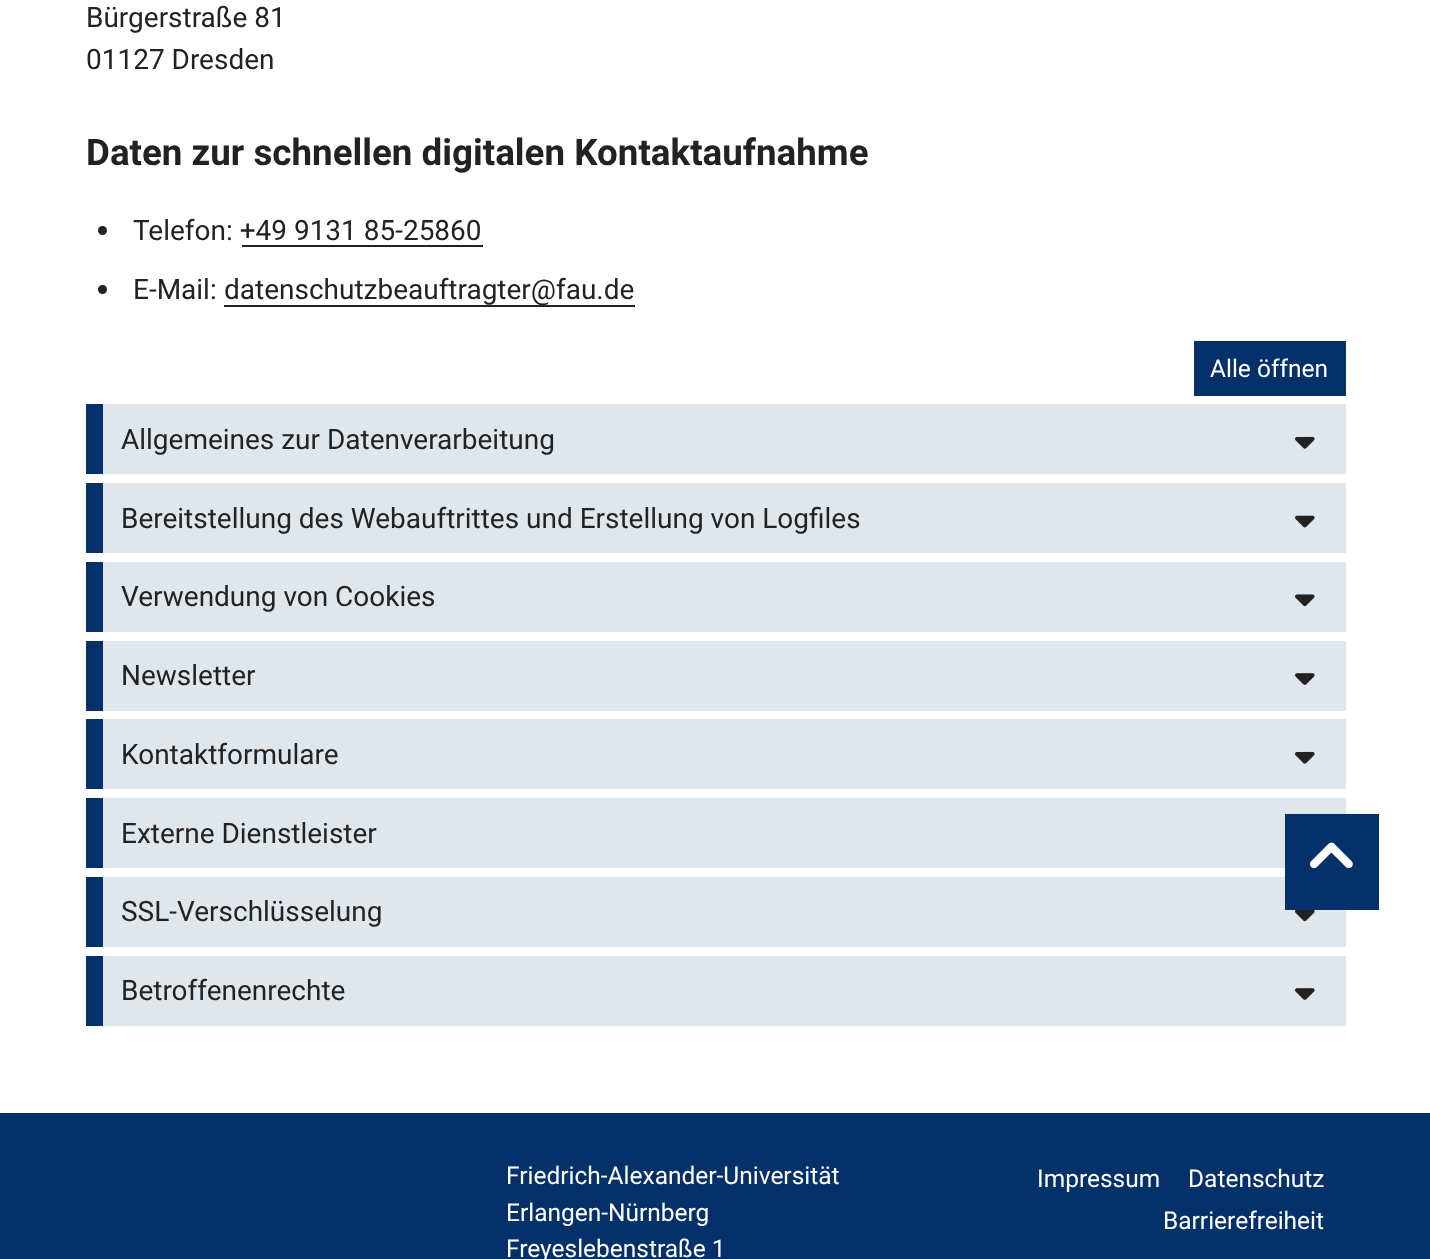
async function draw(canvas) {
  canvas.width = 1430;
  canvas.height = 1259;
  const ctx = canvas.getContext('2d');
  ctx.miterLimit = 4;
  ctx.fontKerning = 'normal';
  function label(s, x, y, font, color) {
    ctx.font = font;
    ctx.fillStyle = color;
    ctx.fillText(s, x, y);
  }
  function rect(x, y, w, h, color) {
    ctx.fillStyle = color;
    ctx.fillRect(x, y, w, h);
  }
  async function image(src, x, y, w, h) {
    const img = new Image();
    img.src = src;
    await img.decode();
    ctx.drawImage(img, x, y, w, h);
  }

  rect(0, 0, 1430, 1259, '#fff');
  label('Bürgerstraße 81', 86, 27, '28px Roboto', '#222');
  label('01127 Dresden', 86, 69, '28px Roboto', '#222');
  label('Daten zur schnellen digitalen Kontaktaufnahme', 86, 165, 'bold 36.75px Roboto', '#222');
  ctx.beginPath();
  ctx.arc(102.5, 230.5, 4.5, 0, 2 * Math.PI);
  ctx.fill();
  label('Telefon: +49 9131 85-25860', 133, 240, '28px Roboto', '#222');
  rect(242, 245, 241, 2, '#222');
  ctx.beginPath();
  ctx.arc(102.5, 289.5, 4.5, 0, 2 * Math.PI);
  ctx.fill();
  label('E-Mail:', 133, 299, '28px Roboto', '#222');
  rect(224, 305, 411, 2, '#222');
  label('datenschutzbeauftragter@fau.de', 224, 299, '28px Roboto', '#222');
  rect(1194, 341, 152, 55, '#04316a');
  label('Alle öffnen', 1210, 377, '24.5px Roboto', '#fff');
  rect(103, 404, 1243, 70, '#dfe6ec');
  rect(86, 404, 17, 70, '#04316a');
  label('Allgemeines zur Datenverarbeitung', 121, 449, '28px Roboto', '#222');
  await image('assets/img1.png', 1295, 436, 20, 13);
  rect(103, 483, 1243, 70, '#dfe6ec');
  rect(86, 483, 17, 70, '#04316a');
  label('Bereitstellung des Webauftrittes und Erstellung von Logfiles', 121, 528, '28px Roboto', '#222');
  await image('assets/img2.png', 1295, 515, 20, 13);
  rect(103, 562, 1243, 70, '#dfe6ec');
  rect(86, 562, 17, 70, '#04316a');
  label('Verwendung von Cookies', 121, 606, '28px Roboto', '#222');
  await image('assets/img3.png', 1295, 594, 20, 13);
  rect(103, 641, 1243, 70, '#dfe6ec');
  rect(86, 641, 17, 70, '#04316a');
  label('Newsletter', 121, 685, '28px Roboto', '#222');
  await image('assets/img4.png', 1295, 673, 20, 12);
  rect(103, 719, 1243, 70, '#dfe6ec');
  rect(86, 719, 17, 70, '#04316a');
  label('Kontaktformulare', 121, 764, '28px Roboto', '#222');
  await image('assets/img1.png', 1295, 751, 20, 13);
  rect(103, 798, 1243, 70, '#dfe6ec');
  rect(86, 798, 17, 70, '#04316a');
  label('Externe Dienstleister', 121, 843, '28px Roboto', '#222');
  rect(103, 877, 1243, 70, '#dfe6ec');
  rect(86, 877, 17, 70, '#04316a');
  label('SSL-Verschlüsselung', 121, 921, '28px Roboto', '#222');
  await image('assets/img5.png', 1295, 910, 20, 12);
  rect(103, 956, 1243, 70, '#dfe6ec');
  rect(86, 956, 17, 70, '#04316a');
  label('Betroffenenrechte', 121, 1000, '28px Roboto', '#222');
  await image('assets/img4.png', 1295, 988, 20, 12);
  rect(0, 1113, 1430, 146, '#04316a');
  rect(1285, 814, 94, 96, '#04316a');
  await image('assets/img6.png', 1310, 842, 43, 27);
  label('Friedrich-Alexander-Universität', 506, 1184, '24.5px Roboto', '#fff');
  label('Erlangen-Nürnberg', 506, 1221, '24.5px Roboto', '#fff');
  label('Freyeslebenstraße 1', 506, 1257, '24.5px Roboto', '#fff');
  label('Impressum', 1037, 1187, '24.5px Roboto', '#fff');
  label('Datenschutz', 1188, 1187, '24.5px Roboto', '#fff');
  label('Barrierefreiheit', 1163, 1229, '24.5px Roboto', '#fff');
}

draw(document.querySelector('canvas'));
